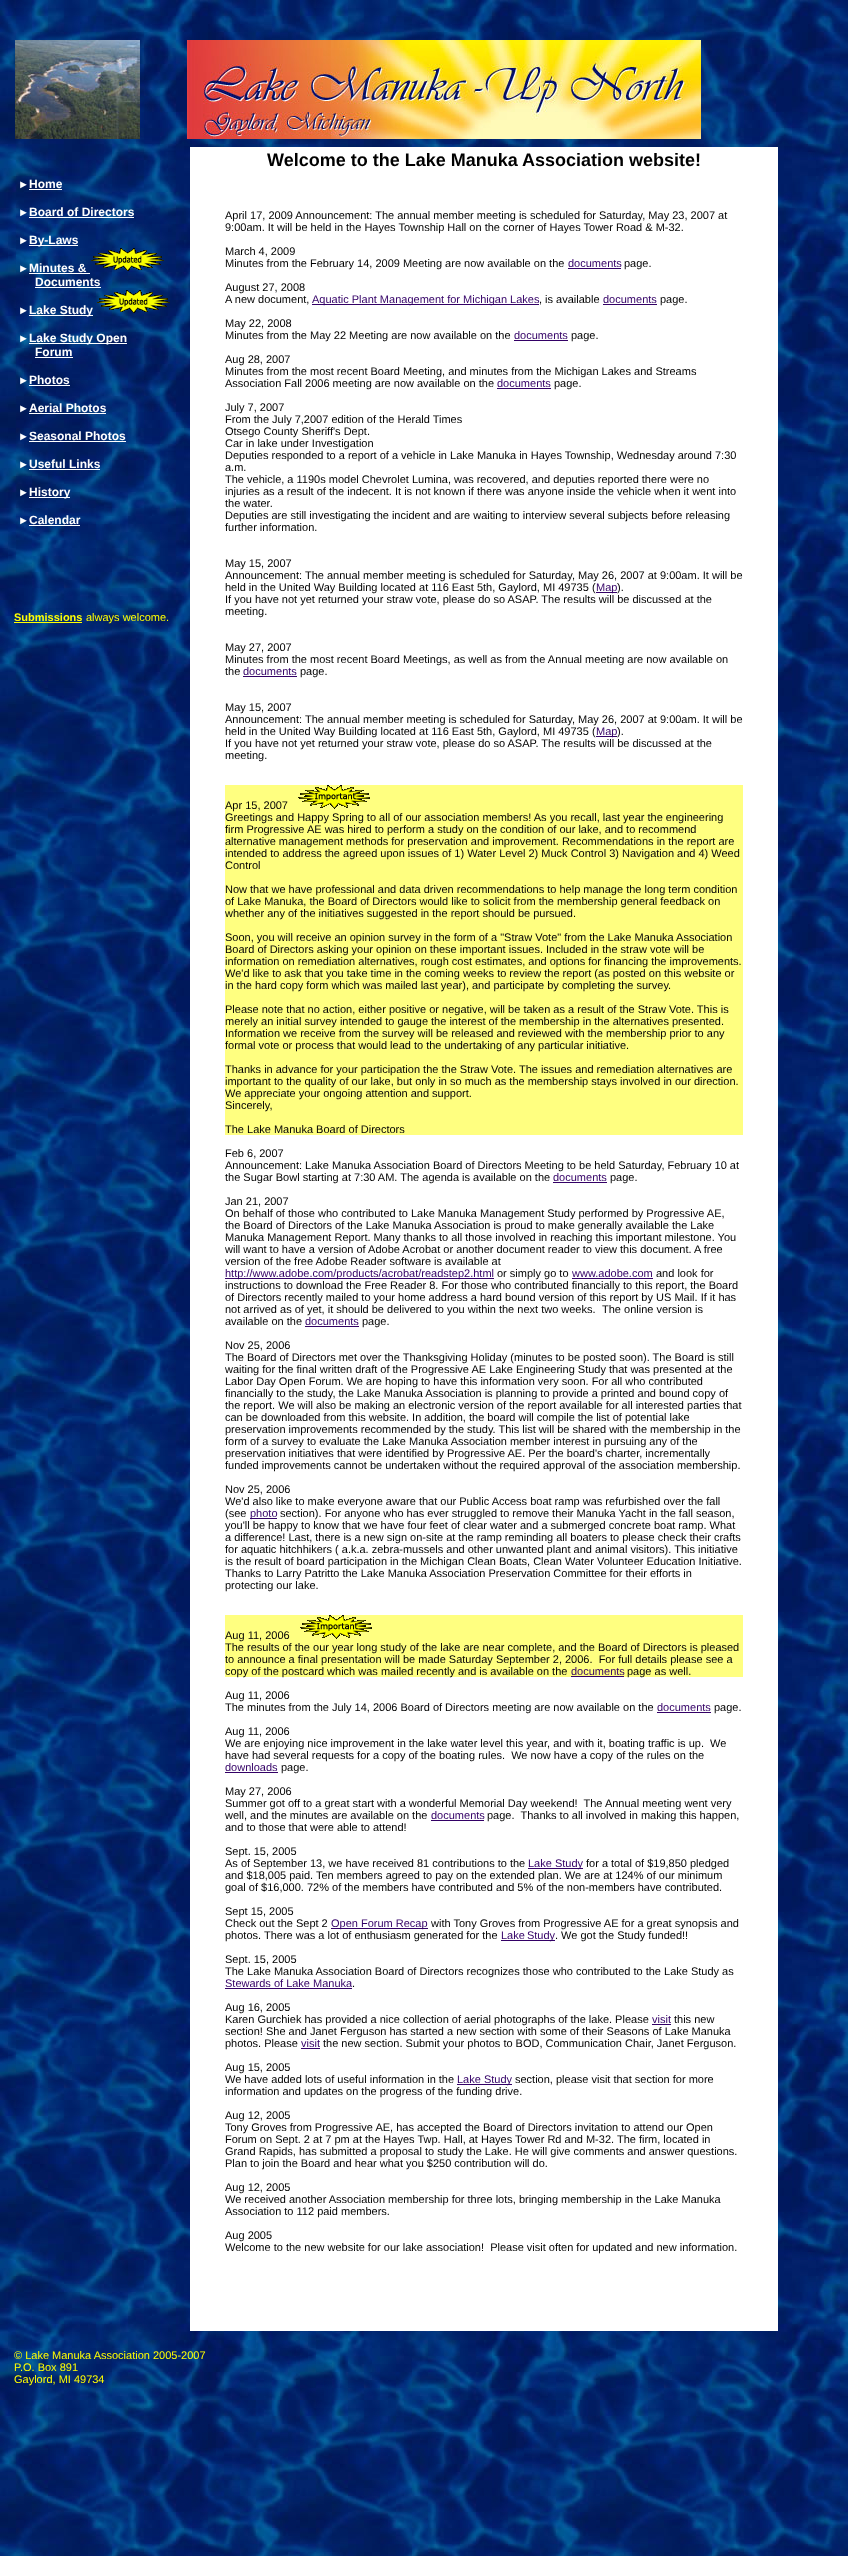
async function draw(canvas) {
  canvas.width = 848;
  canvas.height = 2556;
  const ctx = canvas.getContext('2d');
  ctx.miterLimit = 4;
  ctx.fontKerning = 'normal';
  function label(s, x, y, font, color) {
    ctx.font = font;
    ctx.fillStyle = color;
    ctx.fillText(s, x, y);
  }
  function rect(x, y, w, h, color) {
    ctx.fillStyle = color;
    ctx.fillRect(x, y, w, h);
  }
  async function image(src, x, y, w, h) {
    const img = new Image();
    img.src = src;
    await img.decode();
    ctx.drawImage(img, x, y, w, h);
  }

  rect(0, 0, 848, 2556, '#fff');
  await image('assets/img1.png', 0, 0, 848, 2556);
  await image('assets/img2.png', 15, 40, 125, 99);
  await image('assets/img3.png', 187, 40, 514, 99);
  label('►', 18, 188, '11px Liberation Serif', '#fff');
  label('Home', 29, 188, 'bold 12px Liberation Sans', '#fff');
  rect(29, 189, 33, 1, '#fff');
  label('►', 18, 216, '11px Liberation Serif', '#fff');
  label('Board of Directors', 29, 216, 'bold 12px Liberation Sans', '#fff');
  rect(29, 217, 105, 1, '#fff');
  label('►', 18, 244, '11px Liberation Serif', '#fff');
  rect(29, 245, 49, 1, '#fff');
  label('By-Laws', 29, 244, 'bold 12px Liberation Sans', '#fff');
  label('►', 18, 272, '11px Liberation Serif', '#fff');
  label('Minutes &', 29, 272, 'bold 12px Liberation Sans', '#fff');
  rect(29, 273, 61, 1, '#fff');
  await image('assets/img4.png', 91, 248, 73, 23);
  label('Documents', 35, 286, 'bold 12px Liberation Sans', '#fff');
  rect(35, 287, 66, 1, '#fff');
  label('►', 18, 314, '11px Liberation Serif', '#fff');
  rect(29, 315, 64, 1, '#fff');
  label('Lake Study', 29, 314, 'bold 12px Liberation Sans', '#fff');
  await image('assets/img5.png', 97, 290, 73, 23);
  label('►', 18, 342, '11px Liberation Serif', '#fff');
  rect(29, 343, 98, 1, '#fff');
  label('Lake Study Open', 29, 342, 'bold 12px Liberation Sans', '#fff');
  label('Forum', 35, 356, 'bold 12px Liberation Sans', '#fff');
  rect(35, 357, 38, 1, '#fff');
  label('►', 18, 384, '11px Liberation Serif', '#fff');
  label('Photos', 29, 384, 'bold 12px Liberation Sans', '#fff');
  rect(29, 385, 41, 1, '#fff');
  label('►', 18, 412, '11px Liberation Serif', '#fff');
  label('Aerial Photos', 29, 412, 'bold 12px Liberation Sans', '#fff');
  rect(29, 413, 77, 1, '#fff');
  label('►', 18, 440, '11px Liberation Serif', '#fff');
  label('Seasonal Photos', 29, 440, 'bold 12px Liberation Sans', '#fff');
  rect(29, 441, 97, 1, '#fff');
  label('►', 18, 468, '11px Liberation Serif', '#fff');
  label('Useful Links', 29, 468, 'bold 12px Liberation Sans', '#fff');
  rect(29, 469, 71, 1, '#fff');
  label('►', 18, 496, '11px Liberation Serif', '#fff');
  rect(29, 497, 41, 1, '#fff');
  label('History', 29, 496, 'bold 12px Liberation Sans', '#fff');
  label('►', 18, 524, '11px Liberation Serif', '#fff');
  label('Calendar', 29, 524, 'bold 12px Liberation Sans', '#fff');
  rect(29, 525, 51, 1, '#fff');
  label('Submissions', 14, 621, 'bold 11px Liberation Sans', '#ff0');
  rect(14, 622, 68, 1, '#ff0');
  label('always welcome.', 86, 621, '11px Liberation Sans', '#ff0');
  rect(190, 147, 588, 2184, '#fff');
  label('Welcome to the Lake Manuka Association website!', 267, 166, 'bold 18px Liberation Sans', '#000');
  label('April 17, 2009 Announcement: The annual member meeting is scheduled for Saturday, May 23, 2007 at', 225, 219, '11px Liberation Sans', '#000');
  label('9:00am. It will be held in the Hayes Township Hall on the corner of Hayes Tower Road & M-32.', 225, 231, '11px Liberation Sans', '#000');
  label('March 4, 2009', 225, 255, '11px Liberation Sans', '#000');
  label('Minutes from the February 14, 2009 Meeting are now available on the', 225, 267, '11px Liberation Sans', '#000');
  label('documents', 568, 267, '11px Liberation Sans', '#306');
  rect(568, 268, 53, 1, '#306');
  label('page.', 624, 267, '11px Liberation Sans', '#000');
  label('August 27, 2008', 225, 291, '11px Liberation Sans', '#000');
  label('A new document,', 225, 303, '11px Liberation Sans', '#000');
  rect(312, 304, 227, 1, '#306');
  label('Aquatic Plant Management for Michigan Lakes', 312, 303, '11px Liberation Sans', '#306');
  label(', is available', 539, 303, '11px Liberation Sans', '#000');
  label('documents', 603, 303, '11px Liberation Sans', '#306');
  rect(603, 304, 54, 1, '#306');
  label('page.', 660, 303, '11px Liberation Sans', '#000');
  label('May 22, 2008', 225, 327, '11px Liberation Sans', '#000');
  label('Minutes from the May 22 Meeting are now available on the', 225, 339, '11px Liberation Sans', '#000');
  label('documents', 514, 339, '11px Liberation Sans', '#306');
  rect(514, 340, 54, 1, '#306');
  label('page.', 571, 339, '11px Liberation Sans', '#000');
  label('Aug 28, 2007', 225, 363, '11px Liberation Sans', '#000');
  label('Minutes from the most recent Board Meeting, and minutes from the Michigan Lakes and Streams', 225, 375, '11px Liberation Sans', '#000');
  label('Association Fall 2006 meeting are now available on the', 225, 387, '11px Liberation Sans', '#000');
  label('documents', 497, 387, '11px Liberation Sans', '#306');
  rect(497, 388, 54, 1, '#306');
  label('page.', 554, 387, '11px Liberation Sans', '#000');
  label('July 7, 2007', 225, 411, '11px Liberation Sans', '#000');
  label('From the July 7,2007 edition of the Herald Times', 225, 423, '11px Liberation Sans', '#000');
  label('Otsego County Sheriff\'s Dept.', 225, 435, '11px Liberation Sans', '#000');
  label('Car in lake under Investigation', 225, 447, '11px Liberation Sans', '#000');
  label('Deputies responded to a report of a vehicle in Lake Manuka in Hayes Township, Wednesday around 7:30', 225, 459, '11px Liberation Sans', '#000');
  label('a.m.', 225, 471, '11px Liberation Sans', '#000');
  label('The vehicle, a 1190s model Chevrolet Lumina, was recovered, and deputies reported there were no', 225, 483, '11px Liberation Sans', '#000');
  label('injuries as a result of the indecent. It is not known if there was anyone inside the vehicle when it went into', 225, 495, '11px Liberation Sans', '#000');
  label('the water.', 225, 507, '11px Liberation Sans', '#000');
  label('Deputies are still investigating the incident and are waiting to interview several subjects before releasing', 225, 519, '11px Liberation Sans', '#000');
  label('further information.', 225, 531, '11px Liberation Sans', '#000');
  label('May 15, 2007', 225, 567, '11px Liberation Sans', '#000');
  label('Announcement: The annual member meeting is scheduled for Saturday, May 26, 2007 at 9:00am. It will be', 225, 579, '11px Liberation Sans', '#000');
  label('held in the United Way Building located at 116 East 5th, Gaylord, MI 49735 (', 225, 591, '11px Liberation Sans', '#000');
  rect(596, 592, 21, 1, '#306');
  label('Map', 596, 591, '11px Liberation Sans', '#306');
  label(').', 617, 591, '11px Liberation Sans', '#000');
  label('If you have not yet returned your straw vote, please do so ASAP. The results will be discussed at the', 225, 603, '11px Liberation Sans', '#000');
  label('meeting.', 225, 615, '11px Liberation Sans', '#000');
  label('May 27, 2007', 225, 651, '11px Liberation Sans', '#000');
  label('Minutes from the most recent Board Meetings, as well as from the Annual meeting are now available on', 225, 663, '11px Liberation Sans', '#000');
  label('the', 225, 675, '11px Liberation Sans', '#000');
  label('documents', 243, 675, '11px Liberation Sans', '#306');
  rect(243, 676, 54, 1, '#306');
  label('page.', 300, 675, '11px Liberation Sans', '#000');
  label('May 15, 2007', 225, 711, '11px Liberation Sans', '#000');
  label('Announcement: The annual member meeting is scheduled for Saturday, May 26, 2007 at 9:00am. It will be', 225, 723, '11px Liberation Sans', '#000');
  label('held in the United Way Building located at 116 East 5th, Gaylord, MI 49735 (', 225, 735, '11px Liberation Sans', '#000');
  rect(596, 736, 21, 1, '#306');
  label('Map', 596, 735, '11px Liberation Sans', '#306');
  label(').', 617, 735, '11px Liberation Sans', '#000');
  label('If you have not yet returned your straw vote, please do so ASAP. The results will be discussed at the', 225, 747, '11px Liberation Sans', '#000');
  label('meeting.', 225, 759, '11px Liberation Sans', '#000');
  rect(225, 785, 518, 350, '#ffff80');
  label('Apr 15, 2007', 225, 809, '11px Liberation Sans', '#000');
  await image('assets/img6.png', 298, 785, 72, 24);
  label('Greetings and Happy Spring to all of our association members! As you recall, last year the engineering', 225, 821, '11px Liberation Sans', '#000');
  label('firm Progressive AE was hired to perform a study on the condition of our lake, and to recommend', 225, 833, '11px Liberation Sans', '#000');
  label('alternative management methods for preservation and improvement. Recommendations in the report are', 225, 845, '11px Liberation Sans', '#000');
  label('intended to address the agreed upon issues of 1) Water Level 2) Muck Control 3) Navigation and 4) Weed', 225, 857, '11px Liberation Sans', '#000');
  label('Control', 225, 869, '11px Liberation Sans', '#000');
  label('Now that we have professional and data driven recommendations to help manage the long term condition', 225, 893, '11px Liberation Sans', '#000');
  label('of Lake Manuka, the Board of Directors would like to solicit from the membership general feedback on', 225, 905, '11px Liberation Sans', '#000');
  label('whether any of the initiatives suggested in the report should be pursued.', 225, 917, '11px Liberation Sans', '#000');
  label('Soon, you will receive an opinion survey in the form of a "Straw Vote" from the Lake Manuka Association', 225, 941, '11px Liberation Sans', '#000');
  label('Board of Directors asking your opinion on these important issues. Included in the straw vote will be', 225, 953, '11px Liberation Sans', '#000');
  label('information on remediation alternatives, rough cost estimates, and options for financing the improvements.', 225, 965, '11px Liberation Sans', '#000');
  label('We\'d like to ask that you take time in the coming weeks to review the report (as posted on this website or', 225, 977, '11px Liberation Sans', '#000');
  label('in the hard copy form which was mailed last year), and participate by completing the survey.', 225, 989, '11px Liberation Sans', '#000');
  label('Please note that no action, either positive or negative, will be taken as a result of the Straw Vote. This is', 225, 1013, '11px Liberation Sans', '#000');
  label('merely an initial survey intended to gauge the interest of the membership in the alternatives presented.', 225, 1025, '11px Liberation Sans', '#000');
  label('Information we receive from the survey will be released and reviewed with the membership prior to any', 225, 1037, '11px Liberation Sans', '#000');
  label('formal vote or process that would lead to the undertaking of any particular initiative.', 225, 1049, '11px Liberation Sans', '#000');
  label('Thanks in advance for your participation the the Straw Vote. The issues and remediation alternatives are', 225, 1073, '11px Liberation Sans', '#000');
  label('important to the quality of our lake, but only in so much as the membership stays involved in our direction.', 225, 1085, '11px Liberation Sans', '#000');
  label('We appreciate your ongoing attention and support.', 225, 1097, '11px Liberation Sans', '#000');
  label('Sincerely,', 225, 1109, '11px Liberation Sans', '#000');
  label('The Lake Manuka Board of Directors', 225, 1133, '11px Liberation Sans', '#000');
  label('Feb 6, 2007', 225, 1157, '11px Liberation Sans', '#000');
  label('Announcement: Lake Manuka Association Board of Directors Meeting to be held Saturday, February 10 at', 225, 1169, '11px Liberation Sans', '#000');
  label('the Sugar Bowl starting at 7:30 AM. The agenda is available on the', 225, 1181, '11px Liberation Sans', '#000');
  label('documents', 553, 1181, '11px Liberation Sans', '#306');
  rect(553, 1182, 54, 1, '#306');
  label('page.', 610, 1181, '11px Liberation Sans', '#000');
  label('Jan 21, 2007', 225, 1205, '11px Liberation Sans', '#000');
  label('On behalf of those who contributed to Lake Manuka Management Study performed by Progressive AE,', 225, 1217, '11px Liberation Sans', '#000');
  label('the Board of Directors of the Lake Manuka Association is proud to make generally available the Lake', 225, 1229, '11px Liberation Sans', '#000');
  label('Manuka Management Report. Many thanks to all those involved in reaching this important milestone. You', 225, 1241, '11px Liberation Sans', '#000');
  label('will want to have a version of Adobe Acrobat or another document reader to view this document. A free', 225, 1253, '11px Liberation Sans', '#000');
  label('version of the free Adobe Reader software is available at', 225, 1265, '11px Liberation Sans', '#000');
  rect(225, 1278, 269, 1, '#306');
  label('http://www.adobe.com/products/acrobat/readstep2.html', 225, 1277, '11px Liberation Sans', '#306');
  label('or simply go to', 497, 1277, '11px Liberation Sans', '#000');
  label('www.adobe.com', 572, 1277, '11px Liberation Sans', '#306');
  rect(572, 1278, 81, 1, '#306');
  label('and look for', 656, 1277, '11px Liberation Sans', '#000');
  label('instructions to download the Free Reader 8. For those who contributed financially to this report, the Board', 225, 1289, '11px Liberation Sans', '#000');
  label('of Directors recently mailed to your home address a hard bound version of this report by US Mail. If it has', 225, 1301, '11px Liberation Sans', '#000');
  label('not arrived as of yet, it should be delivered to you within the next two weeks.', 225, 1313, '11px Liberation Sans', '#000');
  label('The online version is', 602, 1313, '11px Liberation Sans', '#000');
  label('available on the', 225, 1325, '11px Liberation Sans', '#000');
  label('documents', 305, 1325, '11px Liberation Sans', '#306');
  rect(305, 1326, 54, 1, '#306');
  label('page.', 362, 1325, '11px Liberation Sans', '#000');
  label('Nov 25, 2006', 225, 1349, '11px Liberation Sans', '#000');
  label('The Board of Directors met over the Thanksgiving Holiday (minutes to be posted soon). The Board is still', 225, 1361, '11px Liberation Sans', '#000');
  label('waiting for the final written draft of the Progressive AE Lake Engineering Study that was presented at the', 225, 1373, '11px Liberation Sans', '#000');
  label('Labor Day Open Forum. We are hoping to have this information very soon. For all who contributed', 225, 1385, '11px Liberation Sans', '#000');
  label('financially to the study, the Lake Manuka Association is planning to provide a printed and bound copy of', 225, 1397, '11px Liberation Sans', '#000');
  label('the report. We will also be making an electronic version of the report available for all interested parties that', 225, 1409, '11px Liberation Sans', '#000');
  label('can be downloaded from this website. In addition, the board will compile the list of potential lake', 225, 1421, '11px Liberation Sans', '#000');
  label('preservation improvements recommended by the study. This list will be shared with the membership in the', 225, 1433, '11px Liberation Sans', '#000');
  label('form of a survey to evaluate the Lake Manuka Association member interest in pursuing any of the', 225, 1445, '11px Liberation Sans', '#000');
  label('preservation initiatives that were identified by Progressive AE. Per the board\'s charter, incrementally', 225, 1457, '11px Liberation Sans', '#000');
  label('funded improvements cannot be undertaken without the required approval of the association membership.', 225, 1469, '11px Liberation Sans', '#000');
  label('Nov 25, 2006', 225, 1493, '11px Liberation Sans', '#000');
  label('We\'d also like to make everyone aware that our Public Access boat ramp was refurbished over the fall', 225, 1505, '11px Liberation Sans', '#000');
  label('(see', 225, 1517, '11px Liberation Sans', '#000');
  rect(250, 1518, 27, 1, '#306');
  label('photo', 250, 1517, '11px Liberation Sans', '#306');
  label('section). For anyone who has ever struggled to remove their Manuka Yacht in the fall season,', 280, 1517, '11px Liberation Sans', '#000');
  label('you\'ll be happy to know that we have four feet of clear water and a submerged concrete boat ramp. What', 225, 1529, '11px Liberation Sans', '#000');
  label('a difference! Last, there is a new sign on-site at the ramp reminding all boaters to please check their crafts', 225, 1541, '11px Liberation Sans', '#000');
  label('for aquatic hitchhikers ( a.k.a. zebra-mussels and other unwanted plant and animal visitors). This initiative', 225, 1553, '11px Liberation Sans', '#000');
  label('is the result of board participation in the Michigan Clean Boats, Clean Water Volunteer Education Initiative.', 225, 1565, '11px Liberation Sans', '#000');
  label('Thanks to Larry Patritto the Lake Manuka Association Preservation Committee for their efforts in', 225, 1577, '11px Liberation Sans', '#000');
  label('protecting our lake.', 225, 1589, '11px Liberation Sans', '#000');
  rect(225, 1615, 518, 62, '#ffff80');
  label('Aug 11, 2006', 225, 1639, '11px Liberation Sans', '#000');
  await image('assets/img6.png', 300, 1615, 72, 24);
  label('The results of the our year long study of the lake are near complete, and the Board of Directors is pleased', 225, 1651, '11px Liberation Sans', '#000');
  label('to announce a final presentation will be made Saturday September 2, 2006.  For full details please see a', 225, 1663, '11px Liberation Sans', '#000');
  label('copy of the postcard which was mailed recently and is available on the', 225, 1675, '11px Liberation Sans', '#000');
  label('documents', 571, 1675, '11px Liberation Sans', '#306');
  rect(571, 1676, 53, 1, '#306');
  label('page as well.', 627, 1675, '11px Liberation Sans', '#000');
  label('Aug 11, 2006', 225, 1699, '11px Liberation Sans', '#000');
  label('The minutes from the July 14, 2006 Board of Directors meeting are now available on the', 225, 1711, '11px Liberation Sans', '#000');
  label('documents', 657, 1711, '11px Liberation Sans', '#306');
  rect(657, 1712, 54, 1, '#306');
  label('page.', 714, 1711, '11px Liberation Sans', '#000');
  label('Aug 11, 2006', 225, 1735, '11px Liberation Sans', '#000');
  label('We are enjoying nice improvement in the lake water level this year, and with it, boating traffic is up.  We', 225, 1747, '11px Liberation Sans', '#000');
  label('have had several requests for a copy of the boating rules.  We now have a copy of the rules on the', 225, 1759, '11px Liberation Sans', '#000');
  label('downloads', 225, 1771, '11px Liberation Sans', '#306');
  rect(225, 1772, 53, 1, '#306');
  label('page.', 281, 1771, '11px Liberation Sans', '#000');
  label('May 27, 2006', 225, 1795, '11px Liberation Sans', '#000');
  label('Summer got off to a great start with a wonderful Memorial Day weekend!  The Annual meeting went very', 225, 1807, '11px Liberation Sans', '#000');
  label('well, and the minutes are available on the', 225, 1819, '11px Liberation Sans', '#000');
  label('documents', 431, 1819, '11px Liberation Sans', '#306');
  rect(431, 1820, 53, 1, '#306');
  label('page.  Thanks to all involved in making this happen,', 487, 1819, '11px Liberation Sans', '#000');
  label('and to those that were able to attend!', 225, 1831, '11px Liberation Sans', '#000');
  label('Sept. 15, 2005', 225, 1855, '11px Liberation Sans', '#000');
  label('As of September 13, we have received 81 contributions to the', 225, 1867, '11px Liberation Sans', '#000');
  rect(528, 1868, 55, 1, '#306');
  label('Lake Study', 528, 1867, '11px Liberation Sans', '#306');
  label('for a total of $19,850 pledged', 586, 1867, '11px Liberation Sans', '#000');
  label('and $18,005 paid. Ten members agreed to pay on the extended plan. We are at 124% of our minimum', 225, 1879, '11px Liberation Sans', '#000');
  label('goal of $16,000. 72% of the members have contributed and 5% of the non-members have contributed.', 225, 1891, '11px Liberation Sans', '#000');
  label('Sept 15, 2005', 225, 1915, '11px Liberation Sans', '#000');
  label('Check out the Sept 2', 225, 1927, '11px Liberation Sans', '#000');
  rect(331, 1928, 97, 1, '#306');
  label('Open Forum Recap', 331, 1927, '11px Liberation Sans', '#306');
  label('with Tony Groves from Progressive AE for a great synopsis and', 431, 1927, '11px Liberation Sans', '#000');
  label('photos. There was a lot of enthusiasm generated for the', 225, 1939, '11px Liberation Sans', '#000');
  rect(501, 1940, 54, 1, '#306');
  ctx.wordSpacing = '-1px';
  label('Lake Study', 501, 1939, '11px Liberation Sans', '#306');
  ctx.wordSpacing = '0px';
  label('. We got the Study funded!!', 555, 1939, '11px Liberation Sans', '#000');
  label('Sept. 15, 2005', 225, 1963, '11px Liberation Sans', '#000');
  label('The Lake Manuka Association Board of Directors recognizes those who contributed to the Lake Study as', 225, 1975, '11px Liberation Sans', '#000');
  label('Stewards of Lake Manuka', 225, 1987, '11px Liberation Sans', '#306');
  rect(225, 1988, 127, 1, '#306');
  label('.', 352, 1987, '11px Liberation Sans', '#000');
  label('Aug 16, 2005', 225, 2011, '11px Liberation Sans', '#000');
  label('Karen Gurchiek has provided a nice collection of aerial photographs of the lake. Please', 225, 2023, '11px Liberation Sans', '#000');
  label('visit', 652, 2023, '11px Liberation Sans', '#306');
  rect(652, 2024, 19, 1, '#306');
  label('this new', 674, 2023, '11px Liberation Sans', '#000');
  label('section! She and Janet Ferguson has started a new section with some of their Seasons of Lake Manuka', 225, 2035, '11px Liberation Sans', '#000');
  label('photos. Please', 225, 2047, '11px Liberation Sans', '#000');
  label('visit', 301, 2047, '11px Liberation Sans', '#306');
  rect(301, 2048, 19, 1, '#306');
  label('the new section. Submit your photos to BOD, Communication Chair, Janet Ferguson.', 323, 2047, '11px Liberation Sans', '#000');
  label('Aug 15, 2005', 225, 2071, '11px Liberation Sans', '#000');
  label('We have added lots of useful information in the', 225, 2083, '11px Liberation Sans', '#000');
  rect(457, 2084, 55, 1, '#306');
  label('Lake Study', 457, 2083, '11px Liberation Sans', '#306');
  label('section, please visit that section for more', 515, 2083, '11px Liberation Sans', '#000');
  label('information and updates on the progress of the funding drive.', 225, 2095, '11px Liberation Sans', '#000');
  label('Aug 12, 2005', 225, 2119, '11px Liberation Sans', '#000');
  label('Tony Groves from Progressive AE, has accepted the Board of Directors invitation to attend our Open', 225, 2131, '11px Liberation Sans', '#000');
  label('Forum on Sept. 2 at 7 pm at the Hayes Twp. Hall, at Hayes Tower Rd and M-32. The firm, located in', 225, 2143, '11px Liberation Sans', '#000');
  label('Grand Rapids, has submitted a proposal to study the Lake. He will give comments and answer questions.', 225, 2155, '11px Liberation Sans', '#000');
  label('Plan to join the Board and hear what you $250 contribution will do.', 225, 2167, '11px Liberation Sans', '#000');
  label('Aug 12, 2005', 225, 2191, '11px Liberation Sans', '#000');
  label('We received another Association membership for three lots, bringing membership in the Lake Manuka', 225, 2203, '11px Liberation Sans', '#000');
  label('Association to 112 paid members.', 225, 2215, '11px Liberation Sans', '#000');
  label('Aug 2005', 225, 2239, '11px Liberation Sans', '#000');
  label('Welcome to the new website for our lake association!  Please visit often for updated and new information.', 225, 2251, '11px Liberation Sans', '#000');
  label('© Lake Manuka Association 2005-2007', 14, 2359, '11px Liberation Sans', '#ff0');
  label('P.O. Box 891', 14, 2371, '11px Liberation Sans', '#ff0');
  label('Gaylord, MI 49734', 14, 2383, '11px Liberation Sans', '#ff0');
}

draw(document.querySelector('canvas'));
